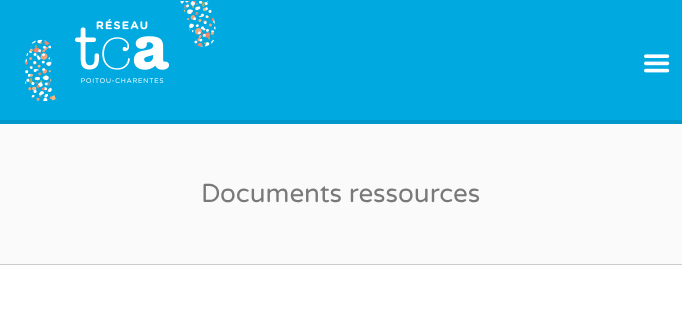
async function draw(canvas) {
  canvas.width = 682;
  canvas.height = 320;
  const ctx = canvas.getContext('2d');
  ctx.miterLimit = 4;
  ctx.fontKerning = 'normal';
  function label(s, x, y, font, color) {
    ctx.font = font;
    ctx.fillStyle = color;
    ctx.fillText(s, x, y);
  }
  function rect(x, y, w, h, color) {
    ctx.fillStyle = color;
    ctx.fillRect(x, y, w, h);
  }
  async function image(src, x, y, w, h) {
    const img = new Image();
    img.src = src;
    await img.decode();
    ctx.drawImage(img, x, y, w, h);
  }

  rect(0, 0, 682, 320, '#fff');
  rect(0, 0, 682, 120, '#00a9e0');
  rect(0, 120, 682, 4, '#0098ca');
  await image('assets/img1.png', 24, 1, 192, 100);
  await image('assets/img2.png', 644, 54, 26, 19);
  rect(0, 124, 682, 140, '#fafafa');
  rect(0, 264, 682, 1, '#ccc');
  label('Documents ressources', 201, 202, '26px Varela Round', '#797979');
}

draw(document.querySelector('canvas'));
